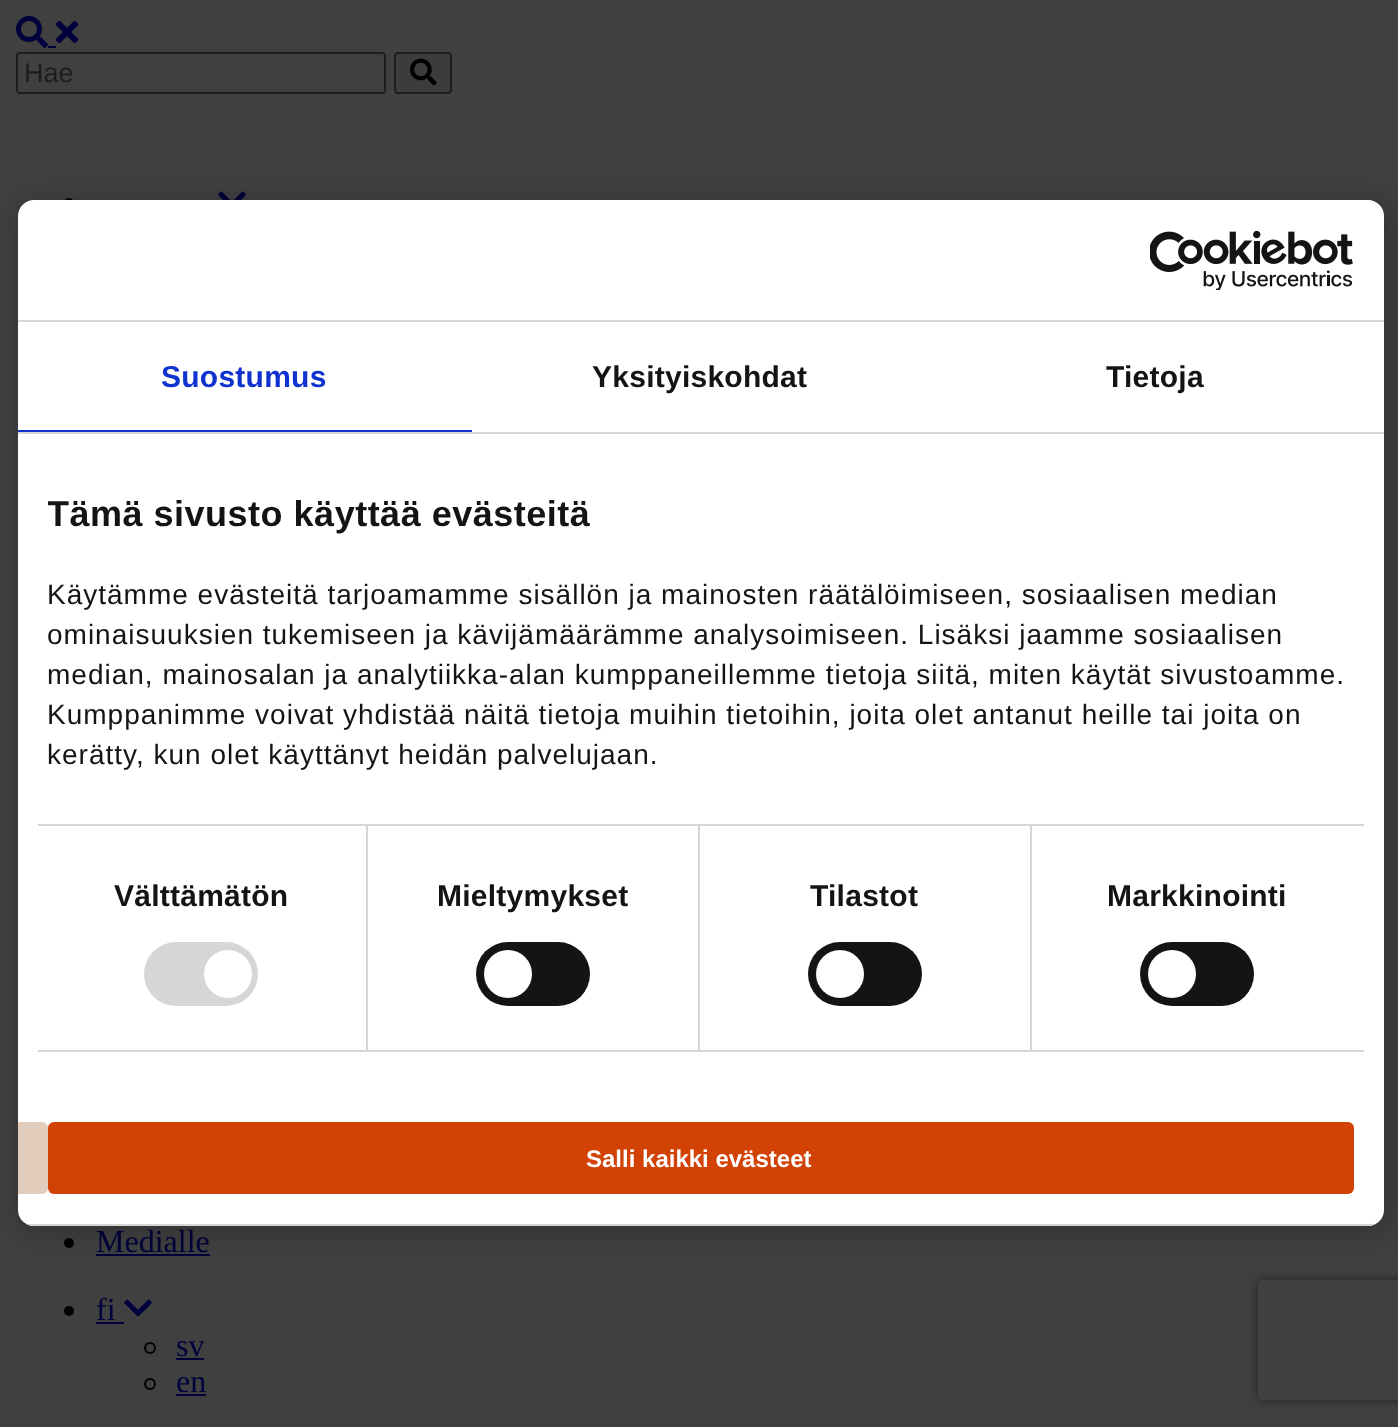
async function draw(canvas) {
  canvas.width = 1398;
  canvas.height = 1427;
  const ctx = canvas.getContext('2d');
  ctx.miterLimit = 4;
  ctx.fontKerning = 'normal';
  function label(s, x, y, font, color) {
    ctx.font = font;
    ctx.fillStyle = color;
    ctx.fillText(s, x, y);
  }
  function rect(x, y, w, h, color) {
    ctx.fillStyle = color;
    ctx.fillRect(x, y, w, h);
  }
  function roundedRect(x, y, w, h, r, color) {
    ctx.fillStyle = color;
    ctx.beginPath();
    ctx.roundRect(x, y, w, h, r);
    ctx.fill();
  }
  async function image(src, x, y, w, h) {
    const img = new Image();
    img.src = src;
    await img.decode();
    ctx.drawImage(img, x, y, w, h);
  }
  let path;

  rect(0, 0, 1398, 1427, '#404040');
  await image('assets/img1.png', 16, 16, 32, 32);
  await image('assets/img2.png', 56, 21, 22, 22);
  rect(48, 46, 8, 2, '#00003c');
  ctx.beginPath();
  ctx.roundRect(17, 53, 368, 40, 3);
  ctx.strokeStyle = '#1e1e1e';
  ctx.lineWidth = 2;
  ctx.stroke();
  label('Hae', 24, 82, '27px Liberation Sans', '#1d1d1d');
  ctx.fillStyle = '#3c3c3c';
  ctx.beginPath();
  ctx.roundRect(395, 53, 56, 40, 3);
  ctx.fill();
  ctx.stroke();
  await image('assets/img3.png', 410, 58, 27, 28);
  await image('assets/img4.png', 218, 191, 28, 9);
  ctx.fillStyle = '#000';
  ctx.beginPath();
  ctx.arc(69, 203, 5, 0, 2 * Math.PI);
  ctx.fill();
  ctx.beginPath();
  ctx.arc(69, 1243, 5, 0, 2 * Math.PI);
  ctx.fill();
  label('Medialle', 96, 1252, '32px Liberation Serif', '#00003c');
  rect(96, 1254, 114, 2, '#00003c');
  ctx.fillStyle = '#000';
  ctx.beginPath();
  ctx.arc(69, 1311, 5, 0, 2 * Math.PI);
  ctx.fill();
  label('fi', 96, 1320, '32px Liberation Serif', '#00003c');
  rect(96, 1322, 28, 2, '#00003c');
  await image('assets/img5.png', 124, 1299, 28, 18);
  ctx.beginPath();
  ctx.arc(150, 1348, 5, 0, 2 * Math.PI);
  ctx.strokeStyle = '#000';
  ctx.stroke();
  label('sv', 176, 1356, '32px Liberation Serif', '#00003c');
  rect(176, 1358, 28, 2, '#00003c');
  ctx.beginPath();
  ctx.arc(150, 1384, 5, 0, 2 * Math.PI);
  ctx.stroke();
  label('en', 176, 1392, '32px Liberation Serif', '#00003c');
  rect(176, 1394, 30, 2, '#00003c');
  ctx.fillStyle = '#00000033';
  ctx.filter = 'blur(14px)';
  ctx.beginPath();
  ctx.roundRect(18, 200, 1374, 1034, 20);
  ctx.fill();
  ctx.filter = 'none';
  roundedRect(18, 200, 1366, 1026, 16, '#fff');
  rect(18, 320, 1366, 2, '#d6d6d6');
  await image('assets/img6.png', 1150, 230, 203, 60);
  rect(18, 432, 1366, 2, '#d6d6d6');
  rect(18, 430, 454, 2, '#1032cf');
  ctx.letterSpacing = '0.25px';
  label('Suostumus', 161, 387, 'bold 30px Liberation Sans', '#1032cf');
  label('Yksityiskohdat', 592, 387, 'bold 30px Liberation Sans', '#141414');
  label('Tietoja', 1106, 387, 'bold 30px Liberation Sans', '#141414');
  rect(38, 824, 1326, 2, '#d6d6d6');
  ctx.save();
  ctx.beginPath();
  ctx.rect(48, 486, 1304, 286);
  ctx.clip();
  ctx.letterSpacing = '0.5px';
  label('Tämä sivusto käyttää evästeitä', 47, 526, 'bold 36px Liberation Sans', '#141414');
  ctx.restore();
  ctx.letterSpacing = '1px';
  label('Käytämme evästeitä tarjoamamme sisällön ja mainosten räätälöimiseen, sosiaalisen median', 47, 604, '28px Liberation Sans', '#141414');
  label('ominaisuuksien tukemiseen ja kävijämäärämme analysoimiseen. Lisäksi jaamme sosiaalisen', 47, 644, '28px Liberation Sans', '#141414');
  label('median, mainosalan ja analytiikka-alan kumppaneillemme tietoja siitä, miten käytät sivustoamme.', 47, 684, '28px Liberation Sans', '#141414');
  label('Kumppanimme voivat yhdistää näitä tietoja muihin tietoihin, joita olet antanut heille tai joita on', 47, 724, '28px Liberation Sans', '#141414');
  label('kerätty, kun olet käyttänyt heidän palvelujaan.', 47, 764, '28px Liberation Sans', '#141414');
  rect(38, 1050, 1326, 2, '#d6d6d6');
  rect(366, 826, 2, 224, '#d6d6d6');
  ctx.letterSpacing = '0.25px';
  label('Välttämätön', 114, 906, 'bold 30px Liberation Sans', '#141414');
  roundedRect(144, 942, 114, 64, 32, '#d6d6d6');
  ctx.fillStyle = '#fff';
  ctx.beginPath();
  ctx.arc(228, 974, 24, 0, 2 * Math.PI);
  ctx.fill();
  rect(698, 826, 2, 224, '#d6d6d6');
  label('Mieltymykset', 437, 906, 'bold 30px Liberation Sans', '#141414');
  roundedRect(476, 942, 114, 64, 32, '#141414');
  ctx.fillStyle = '#fff';
  ctx.beginPath();
  ctx.arc(508, 974, 24, 0, 2 * Math.PI);
  ctx.fill();
  rect(1030, 826, 2, 224, '#d6d6d6');
  label('Tilastot', 810, 906, 'bold 30px Liberation Sans', '#141414');
  roundedRect(808, 942, 114, 64, 32, '#141414');
  ctx.fillStyle = '#fff';
  ctx.beginPath();
  ctx.arc(840, 974, 24, 0, 2 * Math.PI);
  ctx.fill();
  label('Markkinointi', 1107, 906, 'bold 30px Liberation Sans', '#141414');
  roundedRect(1140, 942, 114, 64, 32, '#141414');
  ctx.fillStyle = '#fff';
  ctx.beginPath();
  ctx.arc(1172, 974, 24, 0, 2 * Math.PI);
  ctx.fill();
  ctx.save();
  ctx.beginPath();
  ctx.roundRect(18, 200, 1366, 1026, 16);
  ctx.clip();
  rect(18, 1224, 1366, 2, '#d6d6d6');
  ctx.restore();
  ctx.fillStyle = '#e2cdbc';
  ctx.beginPath();
  ctx.roundRect(18, 1122, 30, 72, [0, 6, 6, 0]);
  ctx.fill();
  roundedRect(48, 1122, 1306, 72, 6, '#d24204');
  ctx.letterSpacing = '0px';
  label('Salli kaikki evästeet', 586, 1167, 'bold 24px Liberation Sans', '#fff');
  ctx.save();
  path = new Path2D('M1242 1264H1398V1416H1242ZM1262 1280H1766C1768 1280 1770 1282 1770 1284V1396C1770 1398 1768 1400 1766 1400H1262C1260 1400 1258 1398 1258 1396V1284C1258 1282 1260 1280 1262 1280Z');
  ctx.clip(path, 'evenodd');
  ctx.fillStyle = '#202020';
  ctx.filter = 'blur(5px)';
  ctx.beginPath();
  ctx.roundRect(1258, 1280, 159, 120, 4);
  ctx.fill();
  ctx.filter = 'none';
  ctx.restore();
}

draw(document.querySelector('canvas'));
